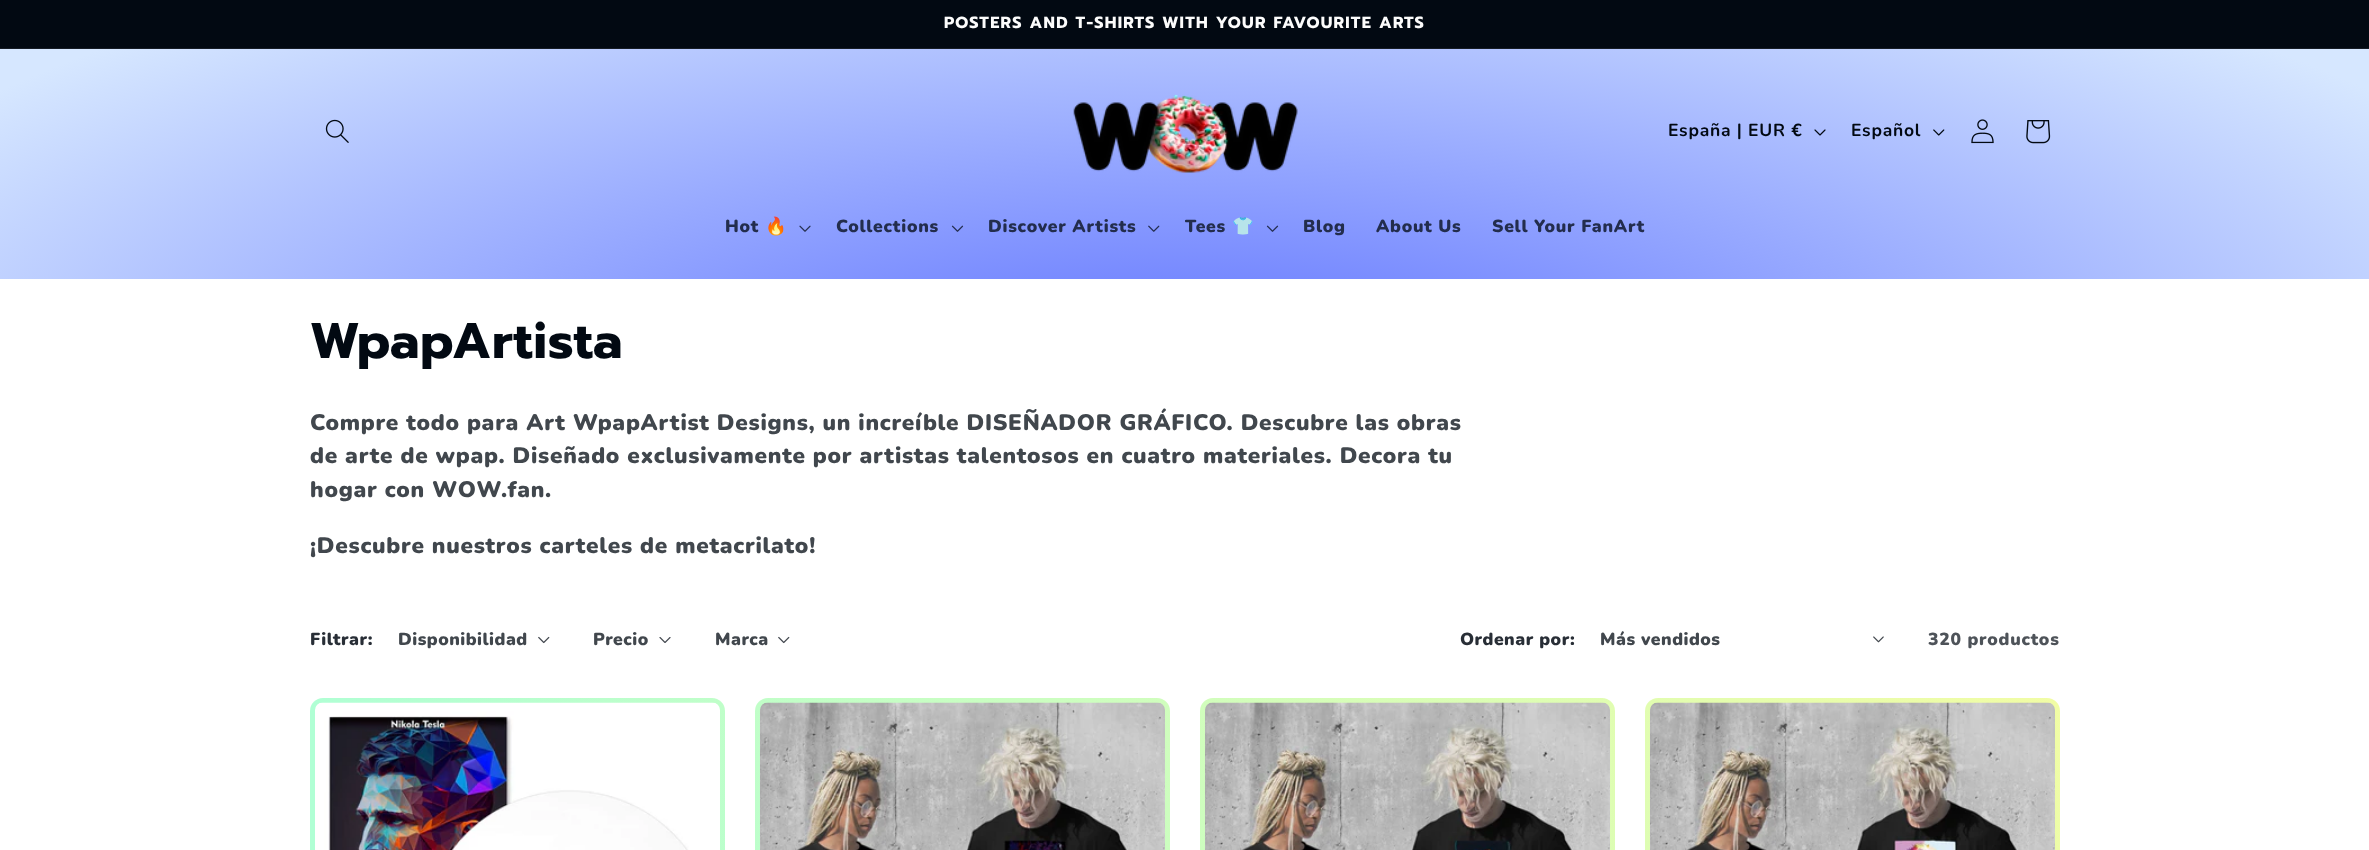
async function draw(canvas) {
  canvas.width = 2369;
  canvas.height = 850;
  const ctx = canvas.getContext('2d');
  ctx.miterLimit = 4;
  ctx.fontKerning = 'normal';
  function label(s, x, y, font, color) {
    ctx.font = font;
    ctx.fillStyle = color;
    ctx.fillText(s, x, y);
  }
  function rect(x, y, w, h, color) {
    ctx.fillStyle = color;
    ctx.fillRect(x, y, w, h);
  }
  async function image(src, x, y, w, h) {
    const img = new Image();
    img.src = src;
    await img.decode();
    ctx.drawImage(img, x, y, w, h);
  }
  let gradient;

  rect(0, 0, 2369, 850, '#fff');
  rect(0, 0, 2369, 48, '#020912');
  rect(0, 48, 2369, 1, '#161c25');
  ctx.letterSpacing = '1.25px';
  label('POSTERS AND T-SHIRTS WITH YOUR FAVOURITE ARTS', 944, 28, 'bold 16.25px Prompt', '#fcfcfc');
  gradient = ctx.createRadialGradient(1185, 1185.19, 0, 1185, 1185.19, 1676);
  gradient.addColorStop(0, '#5467ff');
  gradient.addColorStop(0.9, '#d6e7ff');
  ctx.fillStyle = gradient;
  ctx.beginPath();
  ctx.rect(0, 49, 2369, 230);
  ctx.save();
  ctx.clip();
  ctx.scale(1, 601 / 1676);
  ctx.fillRect(0, 0, 2369, 2371);
  ctx.restore();
  await image('assets/img1.png', 325, 119, 24, 24);
  await image('assets/img2.png', 1073, 94, 225, 79);
  ctx.letterSpacing = '0.75px';
  label('España | EUR €', 1668, 136, 'bold 17.5px Nunito', '#020912');
  await image('assets/img3.png', 1814, 129, 12, 7);
  label('Español', 1851, 136, 'bold 17.5px Nunito', '#020912');
  await image('assets/img4.png', 1933, 129, 12, 7);
  await image('assets/img5.png', 1971, 119, 23, 25);
  await image('assets/img6.png', 2026, 120, 25, 24);
  label('Hot', 725, 232, '900 17.5px Nunito', '#232d4d');
  label('🔥', 765, 232, 'bold 17.5px Noto Color Emoji', '#232d4d');
  await image('assets/img7.png', 799, 225, 12, 7);
  label('Collections', 836, 232, '900 17.5px Nunito', '#232d4d');
  await image('assets/img8.png', 951, 225, 13, 7);
  label('Discover Artists', 988, 232, '900 17.5px Nunito', '#232d4d');
  await image('assets/img9.png', 1148, 225, 12, 7);
  label('Tees', 1185, 232, '900 17.5px Nunito', '#232d4d');
  label('👕', 1232, 232, 'bold 17.5px Noto Color Emoji', '#232d4d');
  await image('assets/img10.png', 1266, 225, 13, 7);
  label('Blog', 1303, 232, '900 17.5px Nunito', '#232d4d');
  label('About Us', 1376, 232, '900 17.5px Nunito', '#232d4d');
  label('Sell Your FanArt', 1492, 232, '900 17.5px Nunito', '#232d4d');
  label('WpapArtista', 310, 358, 'bold 50px Prompt', '#020912');
  label('Compre todo para Art WpapArtist Designs, un increíble DISEÑADOR GRÁFICO. Descubre las obras', 310, 430, '900 22.5px Nunito', '#41474d');
  label('de arte de wpap. Diseñado exclusivamente por artistas talentosos en cuatro materiales. Decora tu', 310, 463, '900 22.5px Nunito', '#41474d');
  label('hogar con WOW.fan.', 310, 497, '900 22.5px Nunito', '#41474d');
  label('¡Descubre nuestros carteles de metacrilato!', 310, 553, '900 22.5px Nunito', '#41474d');
  ctx.letterSpacing = '0.5px';
  label('Filtrar:', 310, 645, '900 17.5px Nunito', '#282e36');
  label('Disponibilidad', 398, 645, '900 17.5px Nunito', '#41474d');
  await image('assets/img11.png', 538, 636, 12, 8);
  label('Precio', 593, 645, '900 17.5px Nunito', '#41474d');
  await image('assets/img12.png', 659, 637, 12, 6);
  label('Marca', 715, 645, '900 17.5px Nunito', '#41474d');
  await image('assets/img11.png', 778, 636, 12, 8);
  label('Ordenar por:', 1460, 645, '900 17.5px Nunito', '#282e36');
  label('Más vendidos', 1600, 645, '900 17.5px Nunito', '#41474d');
  await image('assets/img13.png', 1873, 636, 11, 7);
  ctx.letterSpacing = '0.75px';
  label('320 productos', 1928, 645, '900 17.5px Nunito', '#4e5359');
  gradient = ctx.createLinearGradient(207, 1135, 2163, -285);
  gradient.addColorStop(0.14, '#b0ffd4');
  gradient.addColorStop(0.85, '#fffc9b');
  ctx.fillStyle = gradient;
  ctx.beginPath();
  ctx.roundRect(310, 698, 415, 152, [13, 13, 0, 0]);
  ctx.fill();
  await image('assets/img14.png', 315, 702, 405, 148);
  ctx.beginPath();
  ctx.roundRect(755, 698, 415, 152, [13, 13, 0, 0]);
  ctx.fill();
  await image('assets/img15.png', 760, 702, 405, 148);
  ctx.beginPath();
  ctx.roundRect(1200, 698, 415, 152, [13, 13, 0, 0]);
  ctx.fill();
  await image('assets/img16.png', 1205, 702, 405, 148);
  ctx.beginPath();
  ctx.roundRect(1645, 698, 415, 152, [13, 13, 0, 0]);
  ctx.fill();
  await image('assets/img17.png', 1650, 702, 405, 148);
}

draw(document.querySelector('canvas'));
